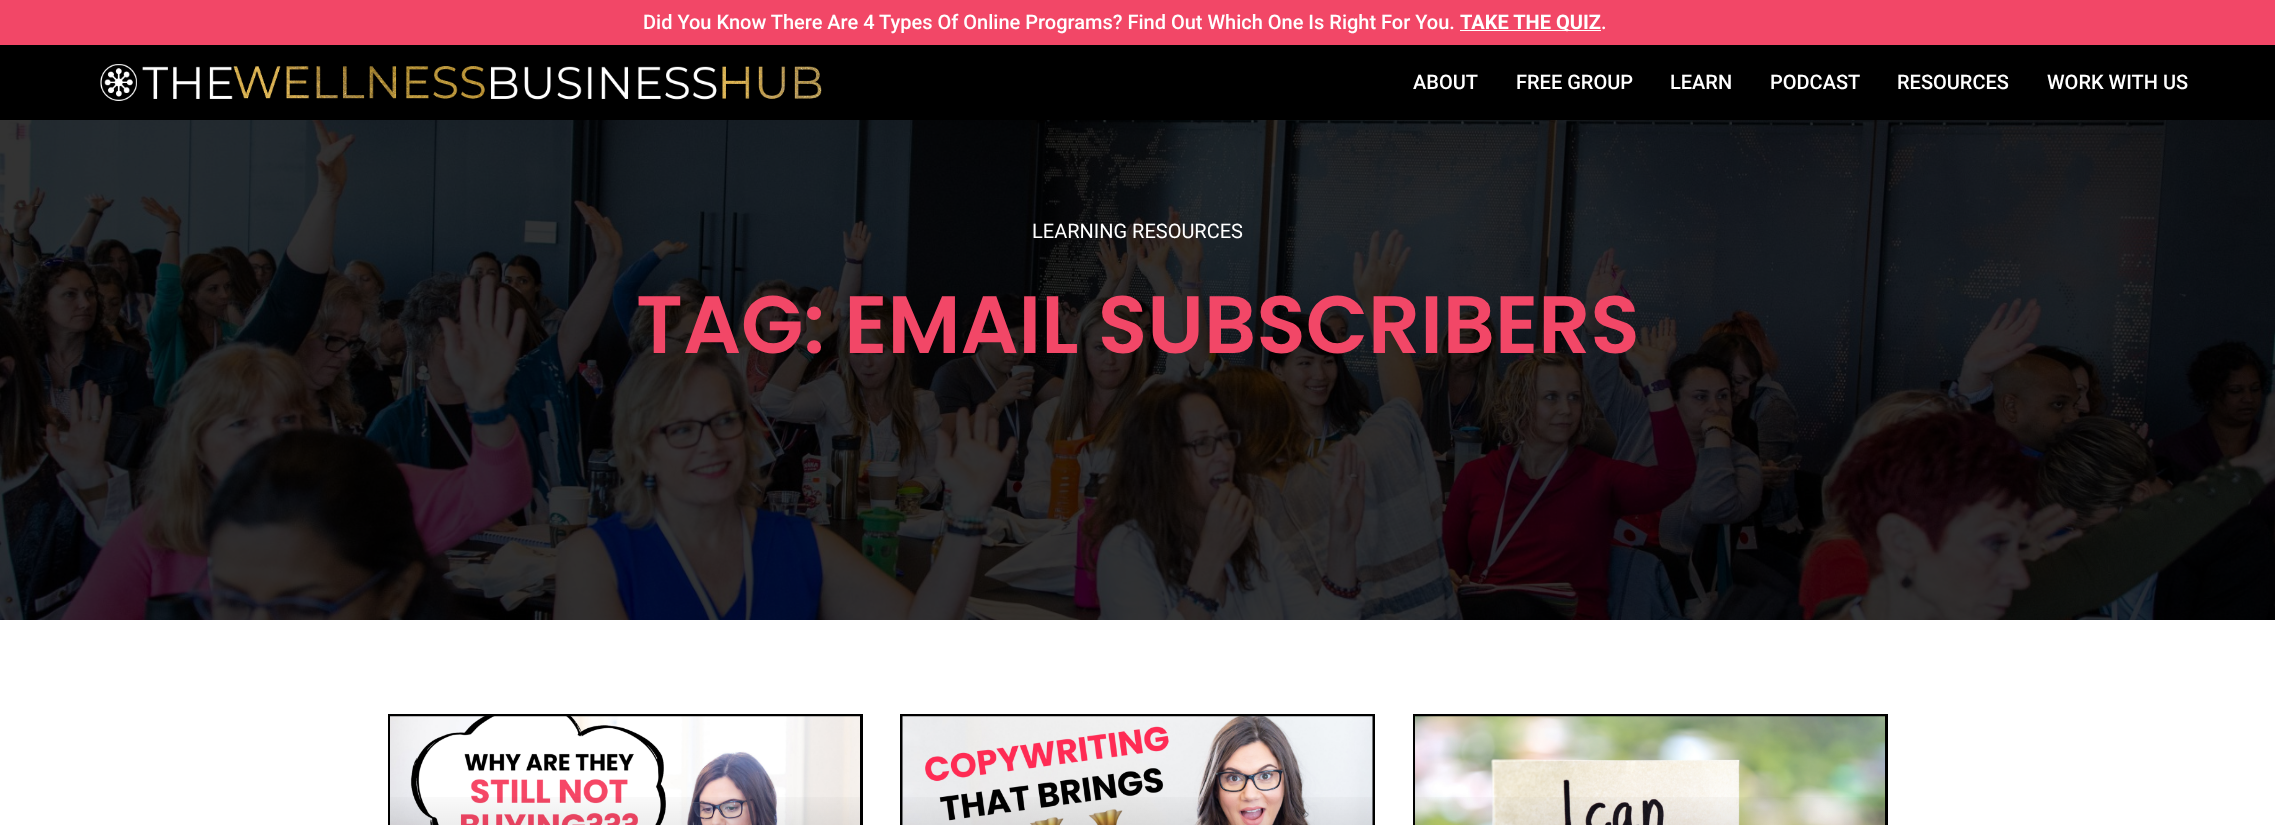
async function draw(canvas) {
  canvas.width = 2275;
  canvas.height = 825;
  const ctx = canvas.getContext('2d');
  ctx.miterLimit = 4;
  ctx.fontKerning = 'normal';
  function label(s, x, y, font, color) {
    ctx.font = font;
    ctx.fillStyle = color;
    ctx.fillText(s, x, y);
  }
  function rect(x, y, w, h, color) {
    ctx.fillStyle = color;
    ctx.fillRect(x, y, w, h);
  }
  async function image(src, x, y, w, h) {
    const img = new Image();
    img.src = src;
    await img.decode();
    ctx.drawImage(img, x, y, w, h);
  }
  let gradient;

  rect(0, 0, 2275, 825, '#fff');
  rect(0, 0, 2275, 45, '#f24767');
  label('Did You Know There Are 4 Types Of Online Programs? Find Out Which One Is Right For You.', 643, 29, '500 20px Roboto', '#fff');
  rect(1460, 30, 141, 1, '#fff');
  label('TAKE THE QUIZ', 1460, 29, 'bold 20px Roboto', '#fff');
  label('.', 1601, 29, '500 20px Roboto', '#fff');
  rect(0, 45, 2275, 75, '#000');
  await image('assets/img1.png', 100, 64, 722, 37);
  label('ABOUT', 1413, 89, '500 20px Roboto', '#fff');
  label('FREE GROUP', 1516, 89, '500 20px Roboto', '#fff');
  label('LEARN', 1670, 89, '500 20px Roboto', '#fff');
  label('PODCAST', 1770, 89, '500 20px Roboto', '#fff');
  label('RESOURCES', 1897, 89, '500 20px Roboto', '#fff');
  label('WORK WITH US', 2047, 89, '500 20px Roboto', '#fff');
  await image('assets/img2.png', 0, 120, 2275, 500);
  label('LEARNING RESOURCES', 1032, 238, '20px Roboto', '#fff');
  label('TAG: EMAIL SUBSCRIBERS', 636, 353, '600 81.25px Poppins', '#f24767');
  ctx.strokeStyle = '#000';
  ctx.lineWidth = 3;
  ctx.strokeRect(389.5, 715.5, 472, 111);
  await image('assets/img3.png', 390, 716, 470, 109);
  gradient = ctx.createLinearGradient(625, 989, 625, 716);
  gradient.addColorStop(0, '#00000059');
  gradient.addColorStop(0.75, '#00000000');
  ctx.fillStyle = gradient;
  ctx.fillRect(390, 797, 470, 28);
  ctx.strokeRect(901.5, 715.5, 472, 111);
  await image('assets/img4.png', 902, 716, 471, 109);
  gradient = ctx.createLinearGradient(1138, 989, 1138, 716);
  gradient.addColorStop(0, '#00000059');
  gradient.addColorStop(0.75, '#00000000');
  ctx.fillStyle = gradient;
  ctx.fillRect(903, 797, 470, 28);
  ctx.strokeRect(1414.5, 715.5, 472, 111);
  await image('assets/img5.png', 1415, 716, 470, 109);
  gradient = ctx.createLinearGradient(1650, 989, 1650, 716);
  gradient.addColorStop(0, '#00000059');
  gradient.addColorStop(0.75, '#00000000');
  ctx.fillStyle = gradient;
  ctx.fillRect(1415, 797, 470, 28);
}

draw(document.querySelector('canvas'));
